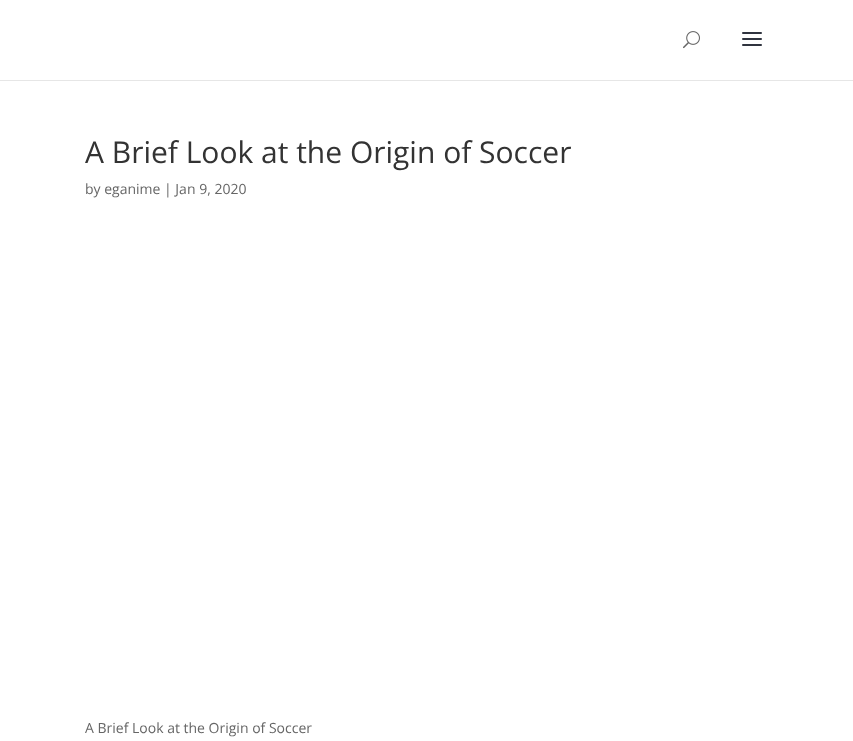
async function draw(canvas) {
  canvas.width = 853;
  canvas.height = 741;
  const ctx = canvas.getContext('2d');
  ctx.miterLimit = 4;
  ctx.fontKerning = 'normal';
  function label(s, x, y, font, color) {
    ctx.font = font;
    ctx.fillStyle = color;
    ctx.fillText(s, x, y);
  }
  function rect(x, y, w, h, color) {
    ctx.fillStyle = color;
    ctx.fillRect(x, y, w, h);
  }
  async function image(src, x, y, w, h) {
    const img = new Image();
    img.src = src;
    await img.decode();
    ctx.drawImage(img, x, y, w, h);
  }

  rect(0, 0, 853, 741, '#fff');
  rect(0, 80, 853, 1, '#e6e6e6');
  await image('assets/img1.png', 683, 31, 17, 18);
  await image('assets/img2.png', 742, 32, 20, 14);
  label('A Brief Look at the Origin of Soccer', 85, 163, '30px Open Sans', '#333');
  label('by eganime | Jan 9, 2020', 85, 194, '14px Open Sans', '#666');
  label('A Brief Look at the Origin of Soccer', 85, 733, '14px Open Sans', '#666');
}

draw(document.querySelector('canvas'));
